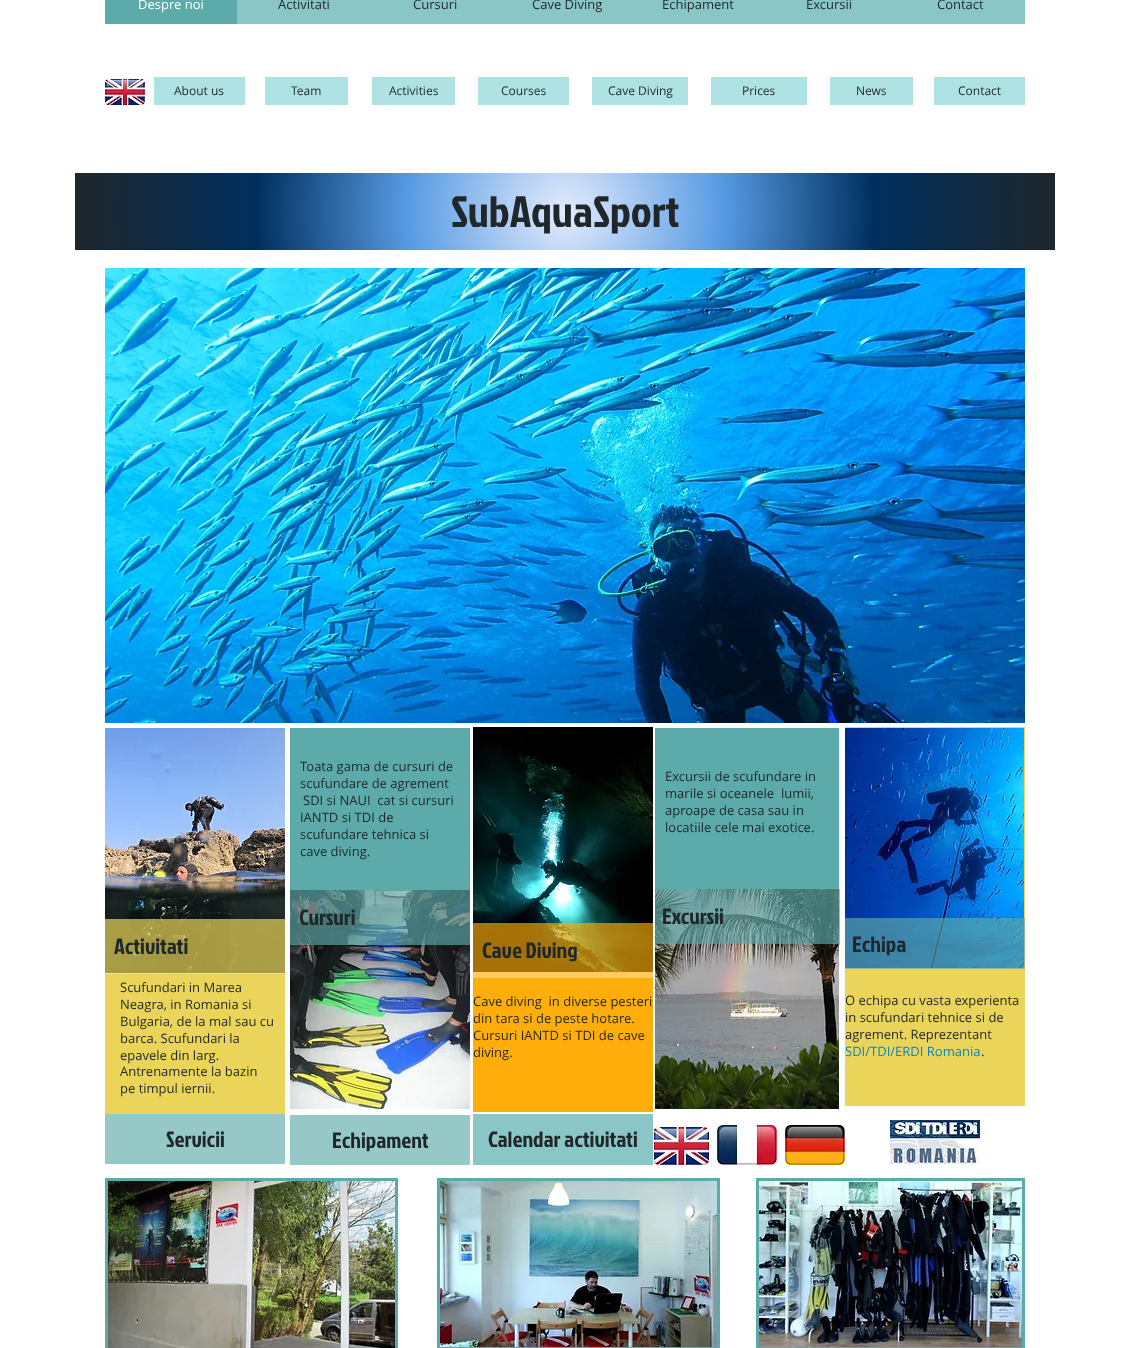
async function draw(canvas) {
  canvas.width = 1130;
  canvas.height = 1348;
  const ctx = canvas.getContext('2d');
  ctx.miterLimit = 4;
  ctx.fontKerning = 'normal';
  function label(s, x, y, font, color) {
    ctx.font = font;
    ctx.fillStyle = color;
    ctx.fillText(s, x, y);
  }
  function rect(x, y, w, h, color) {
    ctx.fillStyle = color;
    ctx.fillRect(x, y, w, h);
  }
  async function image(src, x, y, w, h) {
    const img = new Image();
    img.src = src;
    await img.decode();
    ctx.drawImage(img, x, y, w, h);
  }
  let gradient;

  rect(0, 0, 1130, 1348, '#fff');
  rect(237, 0, 788, 24, '#8ac6c6');
  rect(105, 0, 132, 24, '#5daaaa');
  label('Despre noi', 138, 9, '13px Open Sans', '#fff');
  label('Activitati', 278, 9, '13px Open Sans', '#1f272b');
  label('Cursuri', 413, 9, '13px Open Sans', '#1f272b');
  label('Cave Diving', 532, 9, '13px Open Sans', '#1f272b');
  label('Echipament', 662, 9, '13px Open Sans', '#1f272b');
  label('Excursii', 806, 9, '13px Open Sans', '#1f272b');
  label('Contact', 937, 9, '13px Open Sans', '#1f272b');
  await image('assets/img1.png', 105, 79, 40, 26);
  rect(154, 77, 91, 28, '#afe2e2');
  label('About us', 174, 95, '12px Open Sans', '#1f272b');
  rect(265, 77, 83, 28, '#afe2e2');
  label('Team', 291, 95, '12px Open Sans', '#1f272b');
  rect(372, 77, 83, 28, '#afe2e2');
  label('Activities', 389, 95, '12px Open Sans', '#1f272b');
  rect(478, 77, 91, 28, '#afe2e2');
  label('Courses', 501, 95, '12px Open Sans', '#1f272b');
  rect(592, 77, 96, 28, '#afe2e2');
  label('Cave Diving', 608, 95, '12px Open Sans', '#1f272b');
  rect(711, 77, 96, 28, '#afe2e2');
  label('Prices', 742, 95, '12px Open Sans', '#1f272b');
  rect(830, 77, 83, 28, '#afe2e2');
  label('News', 856, 95, '12px Open Sans', '#1f272b');
  rect(934, 77, 91, 28, '#afe2e2');
  label('Contact', 958, 95, '12px Open Sans', '#1f272b');
  gradient = ctx.createRadialGradient(565, 212, 0, 565, 212, 492);
  gradient.addColorStop(0, '#e4ebfc');
  gradient.addColorStop(0.32, '#589be3');
  gradient.addColorStop(0.63, '#002f5e');
  gradient.addColorStop(1, '#1f272b');
  ctx.fillStyle = gradient;
  ctx.fillRect(75, 173, 980, 77);
  label('SubAquaSport', 451, 227, '44px Jockey One', '#1f272b');
  await image('assets/img2.png', 105, 268, 920, 455);
  await image('assets/img3.png', 105, 728, 180, 245);
  rect(290, 728, 180, 162, '#5daaaa');
  label('Toata gama de cursuri de', 300, 771, '13px Open Sans', '#1f272b');
  label('scufundare de agrement', 300, 788, '13px Open Sans', '#1f272b');
  label('SDI si NAUI  cat si cursuri', 303, 805, '13px Open Sans', '#1f272b');
  label('IANTD si TDI de', 300, 822, '13px Open Sans', '#1f272b');
  label('scufundare tehnica si', 300, 839, '13px Open Sans', '#1f272b');
  label('cave diving.', 300, 856, '13px Open Sans', '#1f272b');
  await image('assets/img4.png', 473, 727, 180, 245);
  rect(655, 728, 184, 161, '#5daaaa');
  label('Excursii de scufundare in', 665, 781, '13px Open Sans', '#1f272b');
  label('marile si oceanele  lumii,', 665, 798, '13px Open Sans', '#1f272b');
  label('aproape de casa sau in', 665, 815, '13px Open Sans', '#1f272b');
  label('locatiile cele mai exotice.', 665, 832, '13px Open Sans', '#1f272b');
  await image('assets/img5.png', 290, 890, 180, 219);
  await image('assets/img6.png', 655, 889, 184, 220);
  rect(290, 890, 180, 55, '#5daaaaa6');
  label('Cursuri', 299, 925, '22px Jockey One', '#1f272b');
  rect(655, 889, 185, 55, '#5daaaaa6');
  label('Excursii', 662, 924, '22px Jockey One', '#1f272b');
  rect(105, 919, 180, 55, '#ead459b3');
  label('Activitati', 114, 954, '22px Jockey One', '#1f272b');
  rect(473, 923, 180, 55, '#ffad0aa6');
  label('Cave Diving', 482, 958, '22px Jockey One', '#1f272b');
  rect(845, 727, 180, 379, '#ead459');
  await image('assets/img7.png', 845, 728, 179, 240);
  rect(845, 918, 180, 51, '#5daaaaa6');
  label('Echipa', 852, 952, '22px Jockey One', '#1f272b');
  label('O echipa cu vasta experienta', 845, 1005, '13px Open Sans', '#1f272b');
  label('in scufundari tehnice si de', 845, 1022, '13px Open Sans', '#1f272b');
  label('agrement. Reprezentant', 845, 1039, '13px Open Sans', '#1f272b');
  label('SDI/TDI/ERDI Romania', 845, 1056, '13px Open Sans', '#0088cb');
  label('.', 981, 1056, '13px Open Sans', '#1f272b');
  rect(105, 974, 180, 140, '#ead459');
  label('Scufundari in Marea', 120, 992, '13px Open Sans', '#1f272b');
  label('Neagra, in Romania si', 120, 1009, '13px Open Sans', '#1f272b');
  label('Bulgaria, de la mal sau cu', 120, 1026, '13px Open Sans', '#1f272b');
  label('barca. Scufundari la', 120, 1043, '13px Open Sans', '#1f272b');
  label('epavele din larg.', 120, 1060, '13px Open Sans', '#1f272b');
  label('Antrenamente la bazin', 120, 1076, '13px Open Sans', '#1f272b');
  label('pe timpul iernii.', 120, 1093, '13px Open Sans', '#1f272b');
  rect(473, 978, 180, 134, '#ffad0a');
  label('Cave diving  in diverse pesteri', 473, 1006, '13px Open Sans', '#1f272b');
  label('din tara si de peste hotare.', 473, 1023, '13px Open Sans', '#1f272b');
  label('Cursuri IANTD si TDI de cave', 473, 1040, '13px Open Sans', '#1f272b');
  label('diving.', 473, 1057, '13px Open Sans', '#1f272b');
  rect(105, 1114, 180, 50, '#96c8c8');
  label('Servicii', 166, 1147, '22px Jockey One', '#1f272b');
  rect(290, 1115, 180, 50, '#96c8c8');
  label('Echipament', 332, 1148, '22px Jockey One', '#1f272b');
  rect(473, 1114, 180, 51, '#8ac6c6');
  label('Calendar activitati', 488, 1147, '22px Jockey One', '#1f272b');
  await image('assets/img8.png', 654, 1127, 55, 38);
  await image('assets/img9.png', 717, 1125, 60, 40);
  await image('assets/img10.png', 785, 1125, 60, 40);
  await image('assets/img11.png', 890, 1120, 90, 45);
  rect(105, 1178, 293, 170, '#5daaaa');
  await image('assets/img12.png', 108, 1181, 287, 167);
  rect(437, 1178, 283, 170, '#5daaaa');
  await image('assets/img13.png', 440, 1181, 277, 166);
  rect(756, 1178, 269, 170, '#5daaaa');
  await image('assets/img14.png', 759, 1181, 263, 166);
}

draw(document.querySelector('canvas'));
